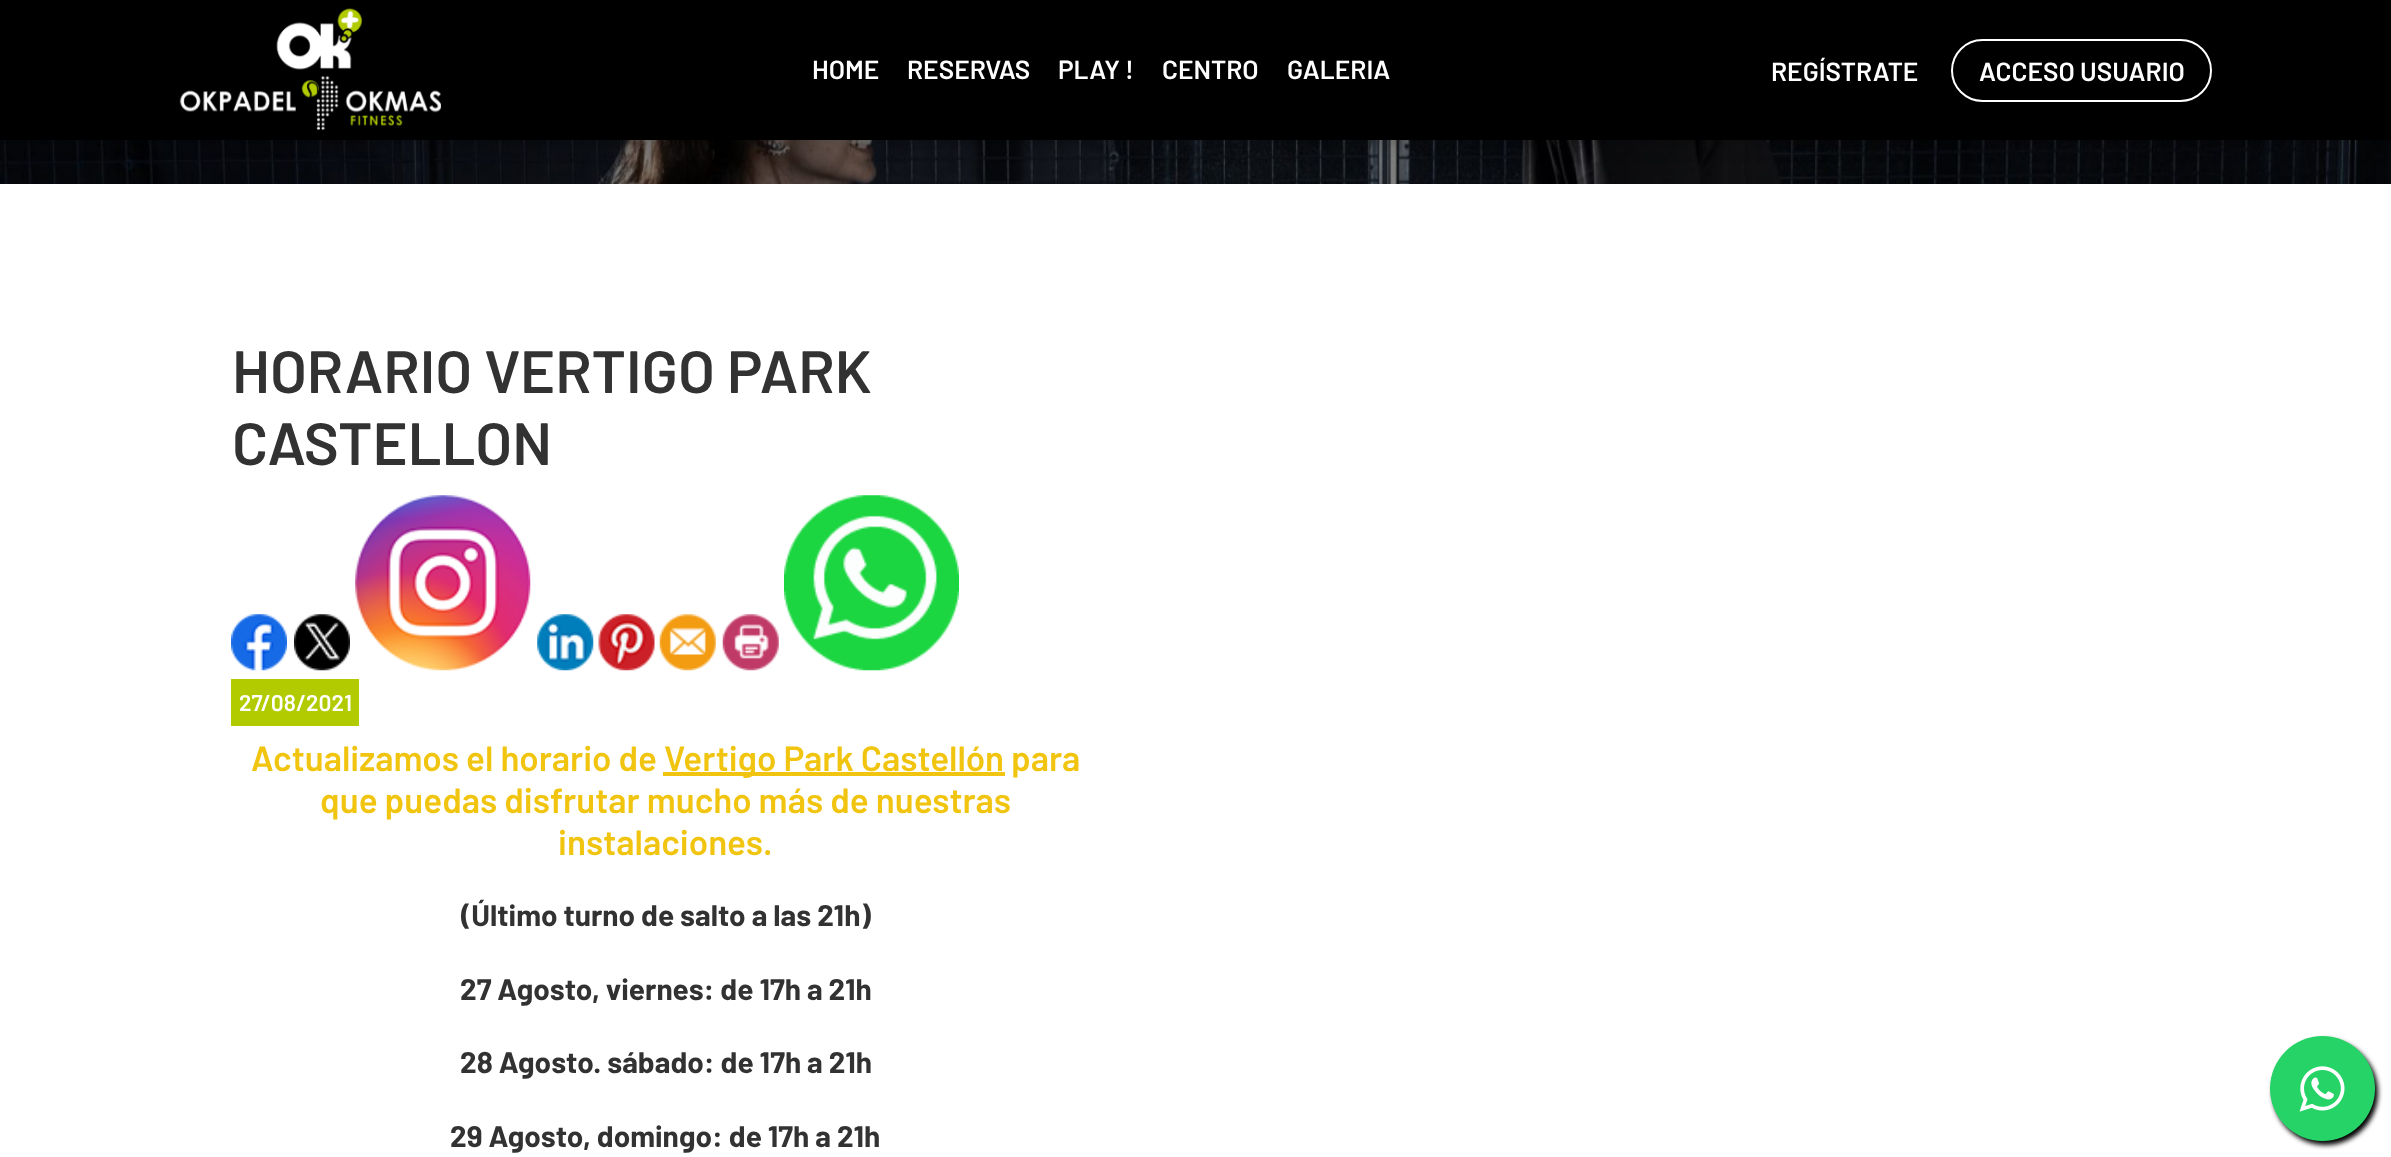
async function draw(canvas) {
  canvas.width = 2391;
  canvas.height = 1157;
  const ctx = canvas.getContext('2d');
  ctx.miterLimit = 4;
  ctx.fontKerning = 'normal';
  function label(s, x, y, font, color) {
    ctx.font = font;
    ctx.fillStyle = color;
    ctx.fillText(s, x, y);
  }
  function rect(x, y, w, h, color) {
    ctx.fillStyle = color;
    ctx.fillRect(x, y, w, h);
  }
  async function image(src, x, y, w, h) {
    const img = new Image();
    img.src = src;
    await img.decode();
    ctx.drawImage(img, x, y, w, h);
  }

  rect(0, 0, 2391, 1157, '#fff');
  await image('assets/img1.png', 0, 140, 2391, 44);
  ctx.fillStyle = '#00000033';
  ctx.filter = 'blur(9px)';
  ctx.beginPath();
  ctx.rect(0, 4, 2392, 140);
  ctx.fill();
  ctx.filter = 'none';
  rect(0, 0, 2391, 140, '#000');
  await image('assets/img2.png', 179, 8, 262, 122);
  label('HOME', 812, 79, '600 26.25px Barlow', '#fff');
  label('RESERVAS', 907, 79, '600 26.25px Barlow', '#fff');
  label('PLAY !', 1058, 79, '600 26.25px Barlow', '#fff');
  label('CENTRO', 1162, 79, '600 26.25px Barlow', '#fff');
  label('GALERIA', 1287, 79, '600 26.25px Barlow', '#fff');
  label('REGÍSTRATE', 1771, 81, '600 26.25px Barlow', '#fff');
  ctx.beginPath();
  ctx.roundRect(1952, 40, 259, 61, 30.5);
  ctx.strokeStyle = '#fff';
  ctx.lineWidth = 2;
  ctx.stroke();
  label('ACCESO USUARIO', 1979, 81, '600 26.25px Barlow', '#fff');
  label('HORARIO VERTIGO PARK', 232, 393, '600 59.5px Barlow', '#323232');
  label('CASTELLON', 232, 465, '600 59.5px Barlow', '#323232');
  await image('assets/img3.png', 231, 614, 56, 57);
  await image('assets/img4.png', 294, 614, 56, 57);
  await image('assets/img5.png', 355, 495, 176, 176);
  await image('assets/img6.png', 537, 614, 57, 57);
  await image('assets/img7.png', 598, 614, 57, 57);
  await image('assets/img8.png', 659, 614, 57, 57);
  await image('assets/img9.png', 722, 614, 57, 57);
  await image('assets/img10.png', 784, 495, 175, 176);
  rect(231, 679, 128, 47, '#b2cb00');
  label('27/08/2021', 239, 711, '600 22.75px Barlow', '#fff');
  label('Actualizamos el horario de', 251, 771, '600 35px Barlow', '#f1c40f');
  rect(663, 772, 342, 4, '#f1c40f');
  label('Vertigo Park Castellón para', 664, 771, '600 35px Barlow', '#f1c40f');
  label('que puedas disfrutar mucho más de nuestras', 320, 813, '600 35px Barlow', '#f1c40f');
  label('instalaciones.', 558, 855, '600 35px Barlow', '#f1c40f');
  label('(Último turno de salto a las 21h)', 461, 926, 'bold 29.75px Barlow', '#323232');
  label('27 Agosto, viernes: de 17h a 21h', 460, 1000, 'bold 29.75px Barlow', '#323232');
  label('28 Agosto. sábado: de 17h a 21h', 460, 1073, 'bold 29.75px Barlow', '#323232');
  label('29 Agosto, domingo: de 17h a 21h', 450, 1147, 'bold 29.75px Barlow', '#323232');
  ctx.fillStyle = '#000';
  ctx.filter = 'blur(2.5px)';
  ctx.beginPath();
  ctx.roundRect(2273, 1040, 105, 105, 52.5);
  ctx.fill();
  ctx.filter = 'none';
  ctx.fillStyle = '#25d366';
  ctx.beginPath();
  ctx.arc(2322.5, 1088.5, 52.5, 0, 2 * Math.PI);
  ctx.fill();
  await image('assets/img11.png', 2299, 1066, 46, 46);
}

draw(document.querySelector('canvas'));
